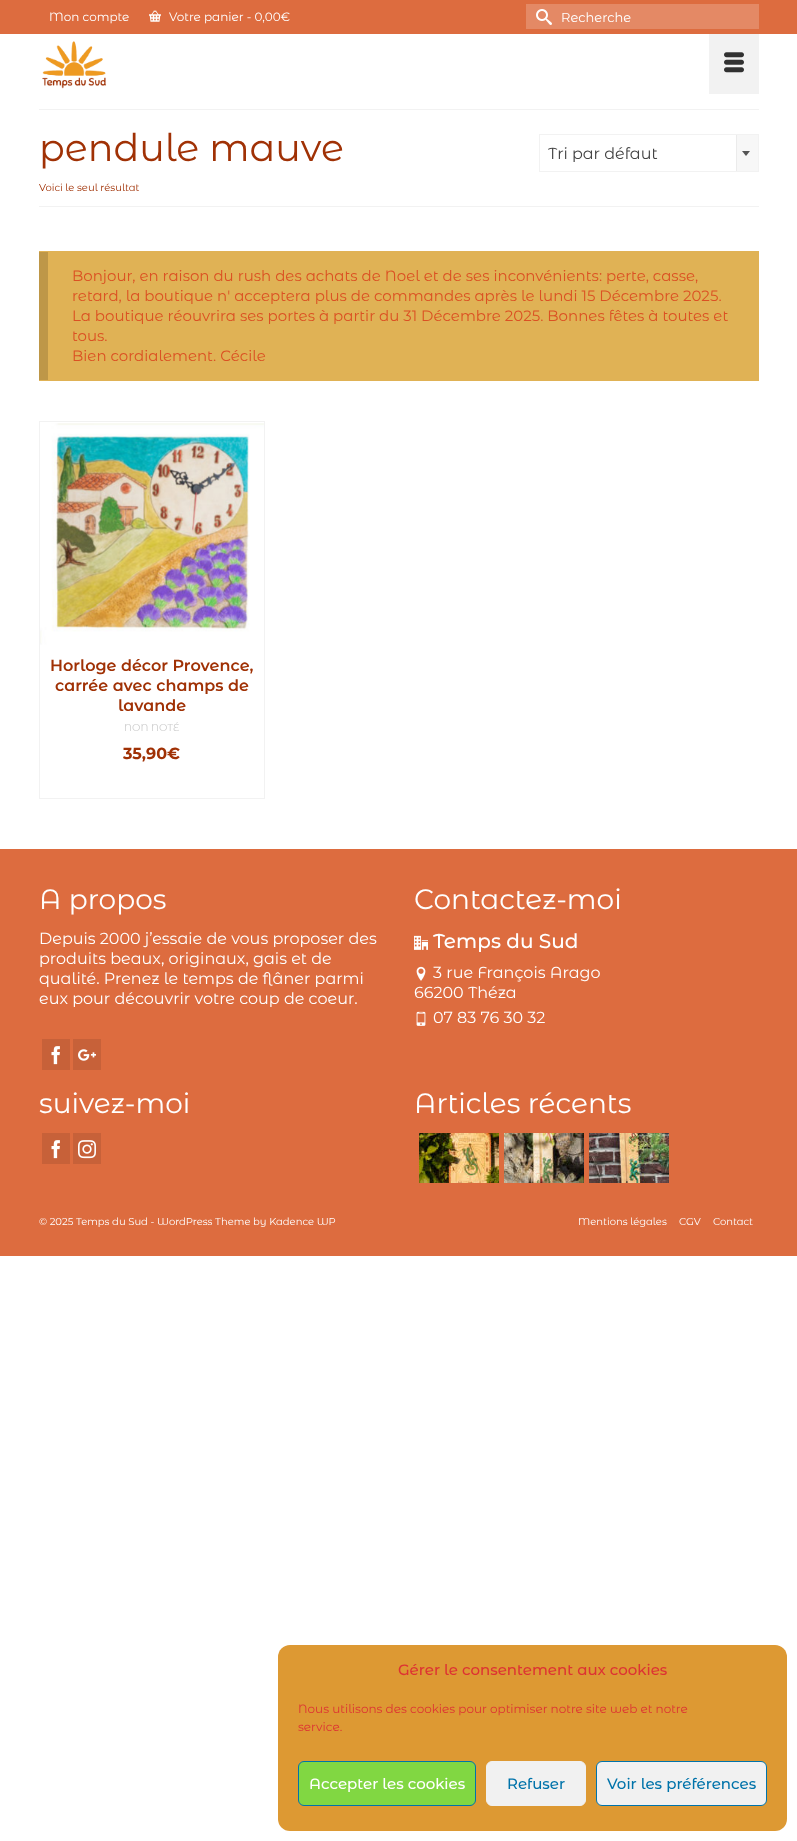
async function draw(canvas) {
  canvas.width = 797;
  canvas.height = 1841;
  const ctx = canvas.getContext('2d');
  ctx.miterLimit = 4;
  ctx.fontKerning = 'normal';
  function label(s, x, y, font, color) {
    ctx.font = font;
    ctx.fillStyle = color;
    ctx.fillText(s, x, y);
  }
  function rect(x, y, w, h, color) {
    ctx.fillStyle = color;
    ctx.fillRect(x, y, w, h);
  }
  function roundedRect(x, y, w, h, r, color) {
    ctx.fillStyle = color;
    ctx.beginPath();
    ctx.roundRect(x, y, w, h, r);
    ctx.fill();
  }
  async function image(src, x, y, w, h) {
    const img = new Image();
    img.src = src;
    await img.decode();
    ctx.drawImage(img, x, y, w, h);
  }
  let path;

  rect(0, 0, 797, 1841, '#fff');
  rect(0, 0, 797, 34, '#dd6c3f');
  label('Mon compte', 49, 21, '12px Montserrat Alternates', '#fff');
  await image('assets/img1.png', 149, 10, 12, 12);
  label('Votre panier - 0,00€', 169, 21, '12px Montserrat Alternates', '#fff');
  rect(526, 4, 233, 25, '#e48965');
  await image('assets/img2.png', 536, 9, 16, 16);
  label('Recherche', 561, 22, '13px Montserrat Alternates', '#fff');
  await image('assets/img3.png', 42, 41, 65, 48);
  rect(709, 34, 50, 60, '#f2f2f2');
  await image('assets/img4.png', 724, 52, 20, 21);
  rect(39, 109, 720, 1, '#f2f2f2');
  rect(39, 206, 720, 1, '#f2f2f2');
  label('pendule mauve', 39, 161, '38px Montserrat Alternates', '#a03105');
  label('Voici le seul résultat', 39, 191, '10px Montserrat Alternates', '#a03105');
  ctx.strokeStyle = '#f2f2f2';
  ctx.strokeRect(539.5, 134.5, 219, 37);
  label('Tri par défaut', 548, 159, '16px Montserrat Alternates', '#444');
  rect(737, 135, 21, 36, '#f7f7f7');
  rect(736, 135, 1, 36, '#ebebeb');
  ctx.fillStyle = '#555';
  path = new Path2D('M742 151H750L746 156Z');
  ctx.fill(path);
  rect(39, 251, 720, 130, '#e0b255');
  rect(39, 252, 9, 128, '#be9748');
  label('Bonjour, en raison du rush des achats de Noel et de ses inconvénients: perte, casse,', 72, 281, '15px Montserrat Alternates', '#db5123');
  label('retard, la boutique n\' acceptera plus de commandes après le lundi 15 Décembre 2025.', 72, 301, '15px Montserrat Alternates', '#db5123');
  label('La boutique réouvrira ses portes à partir du 31 Décembre 2025. Bonnes fêtes à toutes et', 72, 321, '15px Montserrat Alternates', '#db5123');
  label('tous.', 72, 341, '15px Montserrat Alternates', '#db5123');
  label('Bien cordialement. Cécile', 72, 361, '15px Montserrat Alternates', '#db5123');
  ctx.strokeRect(39.5, 421.5, 225, 377);
  await image('assets/img5.png', 40, 423, 224, 222);
  label('Horloge décor Provence,', 50, 671, '600 16px Montserrat Alternates', '#a03105');
  label('carrée avec champs de', 55, 691, '600 16px Montserrat Alternates', '#a03105');
  label('lavande', 118, 711, '600 16px Montserrat Alternates', '#a03105');
  label('NON NOTÉ', 124, 731, '10px Montserrat Alternates', '#ccc');
  label('35,90€', 123, 759, 'bold 16px Montserrat Alternates', '#a03105');
  rect(0, 849, 797, 407, '#dd6c3f');
  label('A propos', 39, 909, '28px Montserrat Alternates', '#fff');
  label('Depuis 2000 j’essaie de vous proposer des', 39, 944, '16px Montserrat Alternates', '#fff');
  label('produits beaux, originaux, gais et de', 39, 964, '16px Montserrat Alternates', '#fff');
  label('qualité. Prenez le temps de flâner parmi', 39, 984, '16px Montserrat Alternates', '#fff');
  label('eux pour découvrir votre coup de coeur.', 39, 1004, '16px Montserrat Alternates', '#fff');
  rect(42, 1039, 28, 31, '#c76139');
  await image('assets/img6.png', 51, 1046, 9, 19);
  rect(73, 1039, 28, 31, '#c76139');
  await image('assets/img7.png', 78, 1049, 18, 12);
  label('Contactez-moi', 414, 909, '28px Montserrat Alternates', '#fff');
  await image('assets/img8.png', 414, 935, 14, 15);
  label('Temps du Sud', 433, 948, '500 20px Montserrat Alternates', '#fff');
  await image('assets/img9.png', 416, 966, 10, 15);
  label('3 rue François Arago', 433, 978, '16px Montserrat Alternates', '#fff');
  label('66200 Théza', 414, 998, '16px Montserrat Alternates', '#fff');
  await image('assets/img10.png', 416, 1011, 10, 15);
  label('07 83 76 30 32', 433, 1023, '16px Montserrat Alternates', '#fff');
  label('suivez-moi', 39, 1113, '28px Montserrat Alternates', '#fff');
  rect(42, 1133, 28, 31, '#c76139');
  await image('assets/img6.png', 51, 1140, 9, 19);
  rect(73, 1133, 28, 31, '#c76139');
  await image('assets/img11.png', 78, 1140, 18, 19);
  label('Articles récents', 414, 1113, '28px Montserrat Alternates', '#fff');
  await image('assets/img12.png', 419, 1133, 80, 50);
  await image('assets/img13.png', 504, 1133, 80, 50);
  await image('assets/img14.png', 589, 1133, 80, 50);
  label('© 2025 Temps du Sud - WordPress Theme by Kadence WP', 39, 1225, '10px Montserrat Alternates', '#fff');
  label('Mentions légales', 578, 1225, '10px Montserrat Alternates', '#fff');
  label('CGV', 679, 1225, '10px Montserrat Alternates', '#fff');
  label('Contact', 713, 1225, '10px Montserrat Alternates', '#fff');
  roundedRect(278, 1645, 509, 186, 12, '#d93');
  label('Gérer le consentement aux cookies', 398, 1675, '500 15px Montserrat Alternates', '#d33');
  label('Nous utilisons des cookies pour optimiser notre site web et notre', 298, 1713, '12px Montserrat Alternates', '#d33');
  label('service.', 298, 1731, '12px Montserrat Alternates', '#d33');
  ctx.fillStyle = '#81d742';
  ctx.beginPath();
  ctx.roundRect(298.5, 1761.5, 177, 44, 5.5);
  ctx.fill();
  ctx.strokeStyle = '#0073aa';
  ctx.stroke();
  label('Accepter les cookies', 309, 1789, '500 15px Montserrat Alternates', '#fff');
  ctx.fillStyle = '#f1f1f1';
  ctx.beginPath();
  ctx.roundRect(486.5, 1761.5, 99, 44, 5.5);
  ctx.fill();
  ctx.strokeStyle = '#f1f1f1';
  ctx.stroke();
  label('Refuser', 507, 1789, '500 15px Montserrat Alternates', '#0073aa');
  ctx.fillStyle = '#f1f1f1';
  ctx.beginPath();
  ctx.roundRect(596.5, 1761.5, 170, 44, 5.5);
  ctx.fill();
  ctx.strokeStyle = '#0073aa';
  ctx.stroke();
  label('Voir les préférences', 607, 1789, '500 15px Montserrat Alternates', '#0073aa');
}

draw(document.querySelector('canvas'));
